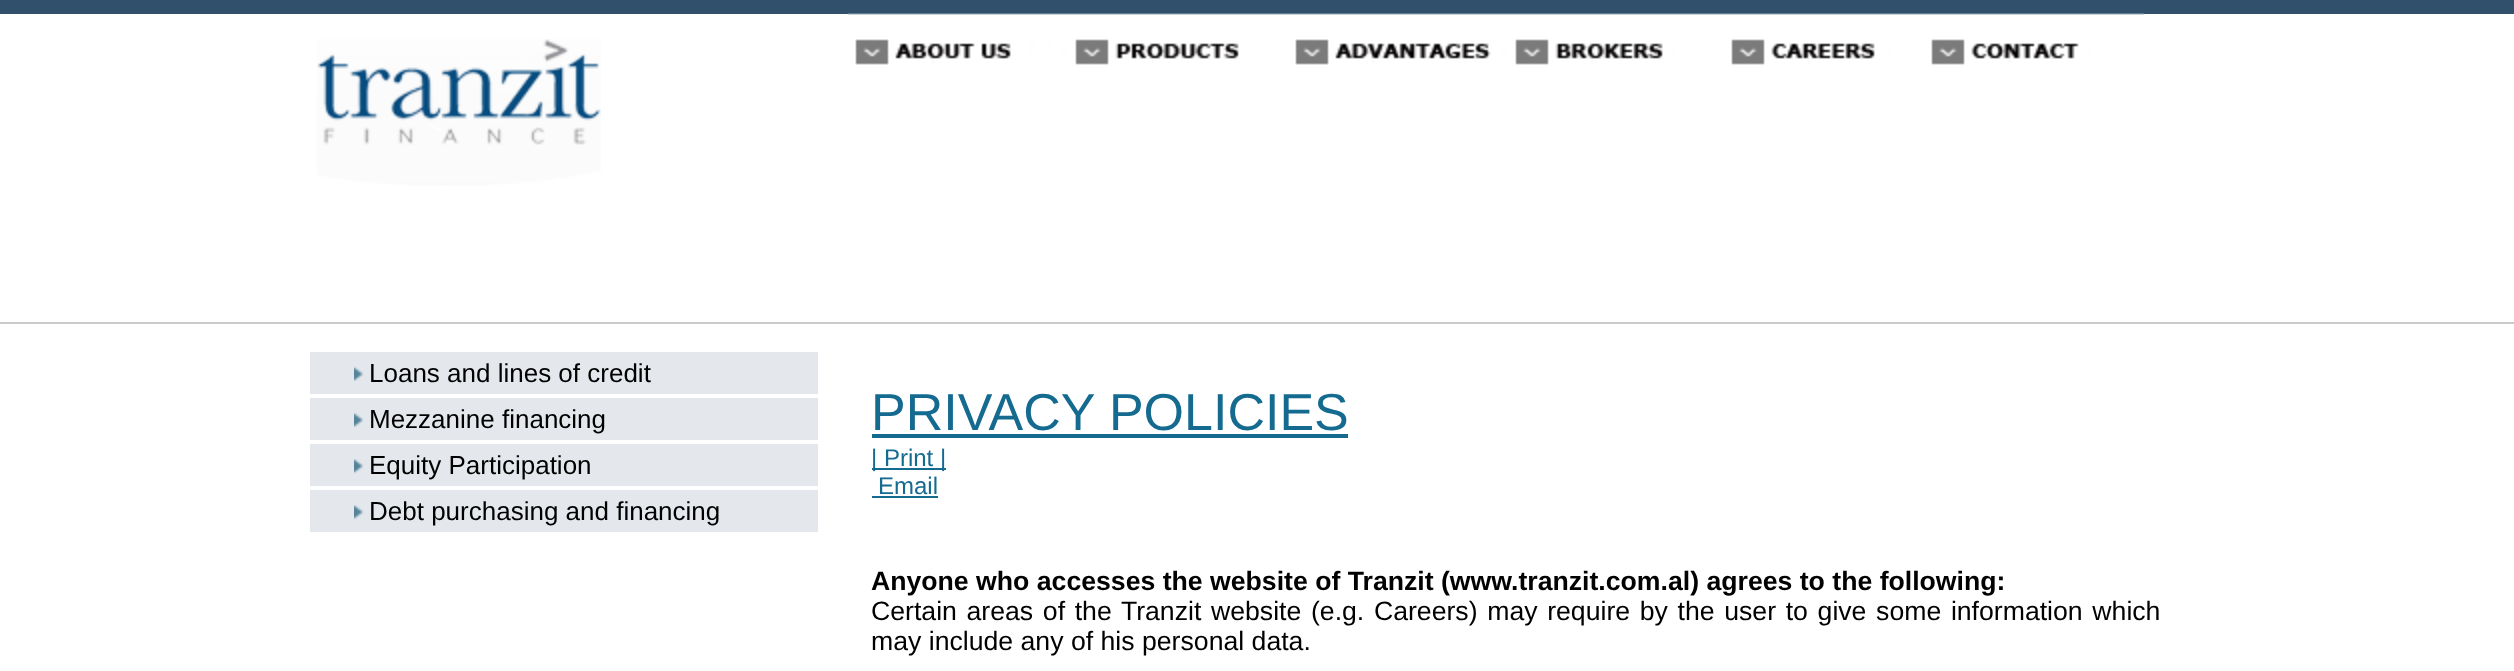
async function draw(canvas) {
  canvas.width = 2514;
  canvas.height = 671;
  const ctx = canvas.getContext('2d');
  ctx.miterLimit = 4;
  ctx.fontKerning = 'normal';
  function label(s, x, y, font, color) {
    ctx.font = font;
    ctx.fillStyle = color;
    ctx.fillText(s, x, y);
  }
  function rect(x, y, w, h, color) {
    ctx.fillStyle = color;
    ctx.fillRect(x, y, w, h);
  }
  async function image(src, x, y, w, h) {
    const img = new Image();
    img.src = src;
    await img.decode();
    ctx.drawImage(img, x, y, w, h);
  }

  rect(0, 0, 2514, 671, '#fff');
  rect(0, 0, 2514, 14, '#30506b');
  await image('assets/img1.png', 317, 39, 284, 147);
  await image('assets/img2.png', 848, 13, 220, 52);
  await image('assets/img3.png', 1068, 13, 220, 52);
  await image('assets/img4.png', 1288, 13, 220, 52);
  await image('assets/img5.png', 1508, 13, 216, 52);
  await image('assets/img6.png', 1724, 13, 180, 52);
  await image('assets/img7.png', 1904, 13, 20, 2);
  await image('assets/img8.png', 1924, 13, 200, 52);
  await image('assets/img7.png', 2124, 13, 20, 2);
  rect(0, 322, 2514, 2, '#cacaca');
  rect(310, 352, 508, 42, '#e4e8ec');
  await image('assets/img9.png', 354, 366, 10, 16);
  label('Loans and lines of credit', 369, 382, '26px Liberation Sans', '#010101');
  rect(310, 398, 508, 42, '#e4e8ec');
  await image('assets/img9.png', 354, 412, 10, 16);
  label('Mezzanine financing', 369, 428, '26px Liberation Sans', '#010101');
  rect(310, 444, 508, 42, '#e4e8ec');
  await image('assets/img9.png', 354, 458, 10, 16);
  label('Equity Participation', 369, 474, '26px Liberation Sans', '#010101');
  rect(310, 490, 508, 42, '#e4e8ec');
  await image('assets/img9.png', 354, 504, 10, 16);
  label('Debt purchasing and financing', 369, 520, '26px Liberation Sans', '#010101');
  label('PRIVACY POLICIES', 871, 430, '52px Liberation Sans', '#156a90');
  rect(872, 434, 476, 4, '#156a90');
  rect(872, 468, 74, 2, '#156a90');
  label('| Print |', 871, 466, '24px Liberation Sans', '#156a90');
  label('Email', 878, 494, '24px Liberation Sans', '#156a90');
  rect(872, 496, 66, 2, '#156a90');
  label('Anyone who accesses the website of Tranzit (www.tranzit.com.al) agrees to the following:', 871, 590, 'bold 26.65px Liberation Sans', '#010101');
  ctx.wordSpacing = '2.25px';
  label('Certain areas of the Tranzit website (e.g. Careers) may require by the user to give some information which', 871, 620, '26.65px Liberation Sans', '#010101');
  ctx.wordSpacing = '0px';
  label('may include any of his personal data.', 871, 650, '26.65px Liberation Sans', '#010101');
}

draw(document.querySelector('canvas'));
